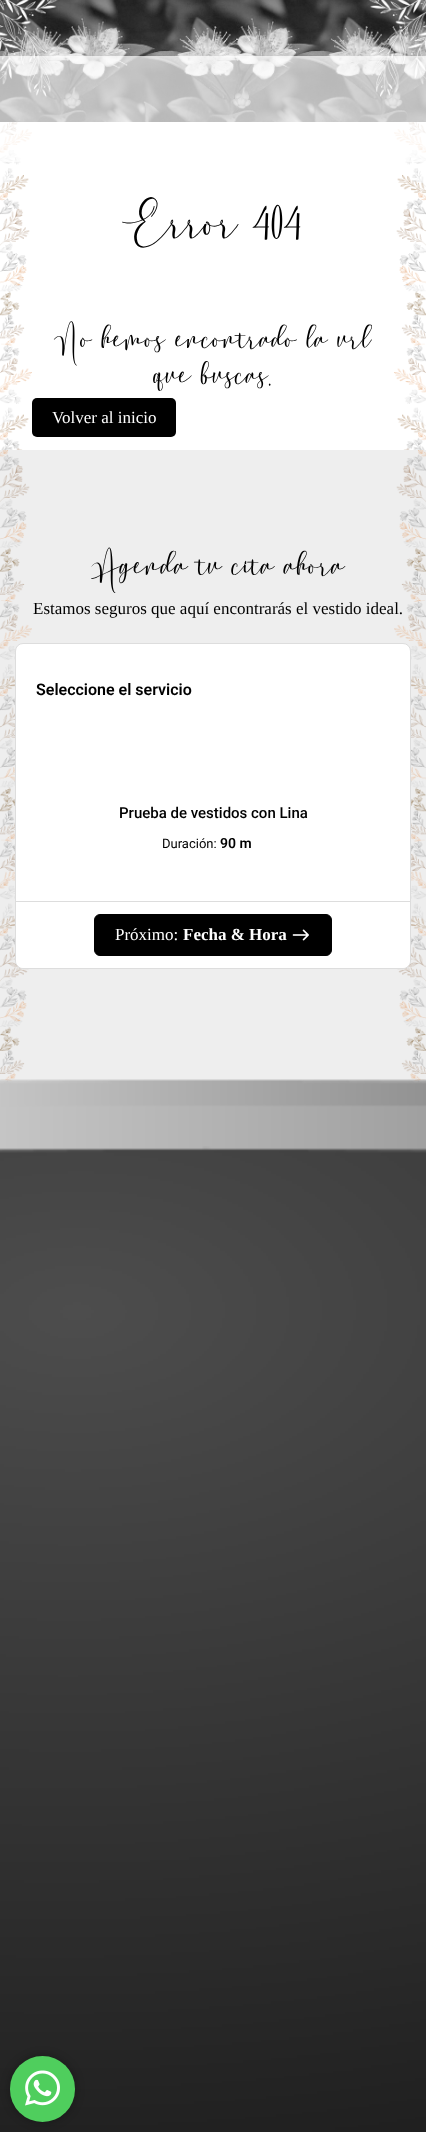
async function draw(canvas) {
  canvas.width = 426;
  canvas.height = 2132;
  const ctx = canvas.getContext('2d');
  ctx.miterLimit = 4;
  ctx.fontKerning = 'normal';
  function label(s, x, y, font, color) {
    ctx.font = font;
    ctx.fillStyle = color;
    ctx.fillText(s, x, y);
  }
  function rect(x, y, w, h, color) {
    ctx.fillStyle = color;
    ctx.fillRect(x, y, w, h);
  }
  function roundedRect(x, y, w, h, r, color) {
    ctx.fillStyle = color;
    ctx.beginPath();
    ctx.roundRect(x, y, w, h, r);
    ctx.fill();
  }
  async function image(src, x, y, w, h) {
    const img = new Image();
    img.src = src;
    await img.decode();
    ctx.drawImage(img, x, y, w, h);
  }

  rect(0, 0, 426, 2132, '#fff');
  await image('assets/img1.png', 0, 0, 426, 122);
  await image('assets/img2.png', 0, 122, 426, 328);
  rect(0, 56, 426, 106, '#ffffffb3');
  label('Error 404', 124, 244, '50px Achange', '#000');
  label('No hemos encontrado la url', 54, 353, '34px Achange', '#000');
  label('que buscas.', 154, 389, '34px Achange', '#000');
  roundedRect(32, 398, 144, 39, 5, '#000');
  label('Volver al inicio', 52, 423, '17px Liberation Serif', '#fff');
  rect(0, 450, 426, 634, '#eee');
  await image('assets/img3.png', 0, 450, 426, 634);
  label('Agenda tu cita ahora', 92, 580, '35px Achange', '#000');
  label('Estamos seguros que aquí encontrarás el vestido ideal.', 33, 614, '17px Liberation Serif', '#000');
  ctx.fillStyle = '#fff';
  ctx.beginPath();
  ctx.roundRect(15.5, 643.5, 395, 325, 7.5);
  ctx.fill();
  ctx.strokeStyle = '#ddd';
  ctx.stroke();
  label('Seleccione el servicio', 36, 695, '600 16px Roboto', '#000');
  label('Prueba de vestidos con Lina', 119, 818, '500 15px Roboto', '#000');
  label('Duración:', 162, 848, '13px Roboto', '#000');
  label('90 m', 220, 848, '600 14px Roboto', '#000');
  ctx.fillStyle = '#fff';
  ctx.beginPath();
  ctx.roundRect(16, 901, 394, 67, [0, 0, 8, 8]);
  ctx.fill();
  rect(16, 901, 394, 1, '#ddd');
  ctx.fillStyle = '#000';
  ctx.beginPath();
  ctx.roundRect(94.5, 914.5, 237, 41, 5.5);
  ctx.fill();
  ctx.strokeStyle = '#000';
  ctx.stroke();
  label('Próximo:', 115, 940, '17px Liberation Serif', '#fff');
  label('Fecha & Hora', 183, 940, 'bold 17px Liberation Serif', '#fff');
  await image('assets/img4.png', 292, 929, 17, 12);
  await image('assets/img5.png', 0, 1079, 426, 1053);
  ctx.fillStyle = '#0000004d';
  ctx.filter = 'blur(5px)';
  ctx.beginPath();
  ctx.roundRect(10, 2056, 65, 66, 32.5);
  ctx.fill();
  ctx.filter = 'none';
  roundedRect(10, 2056, 65, 66, 32.5, '#4fce5d');
  await image('assets/img6.png', 25, 2070, 35, 36);
}

draw(document.querySelector('canvas'));
